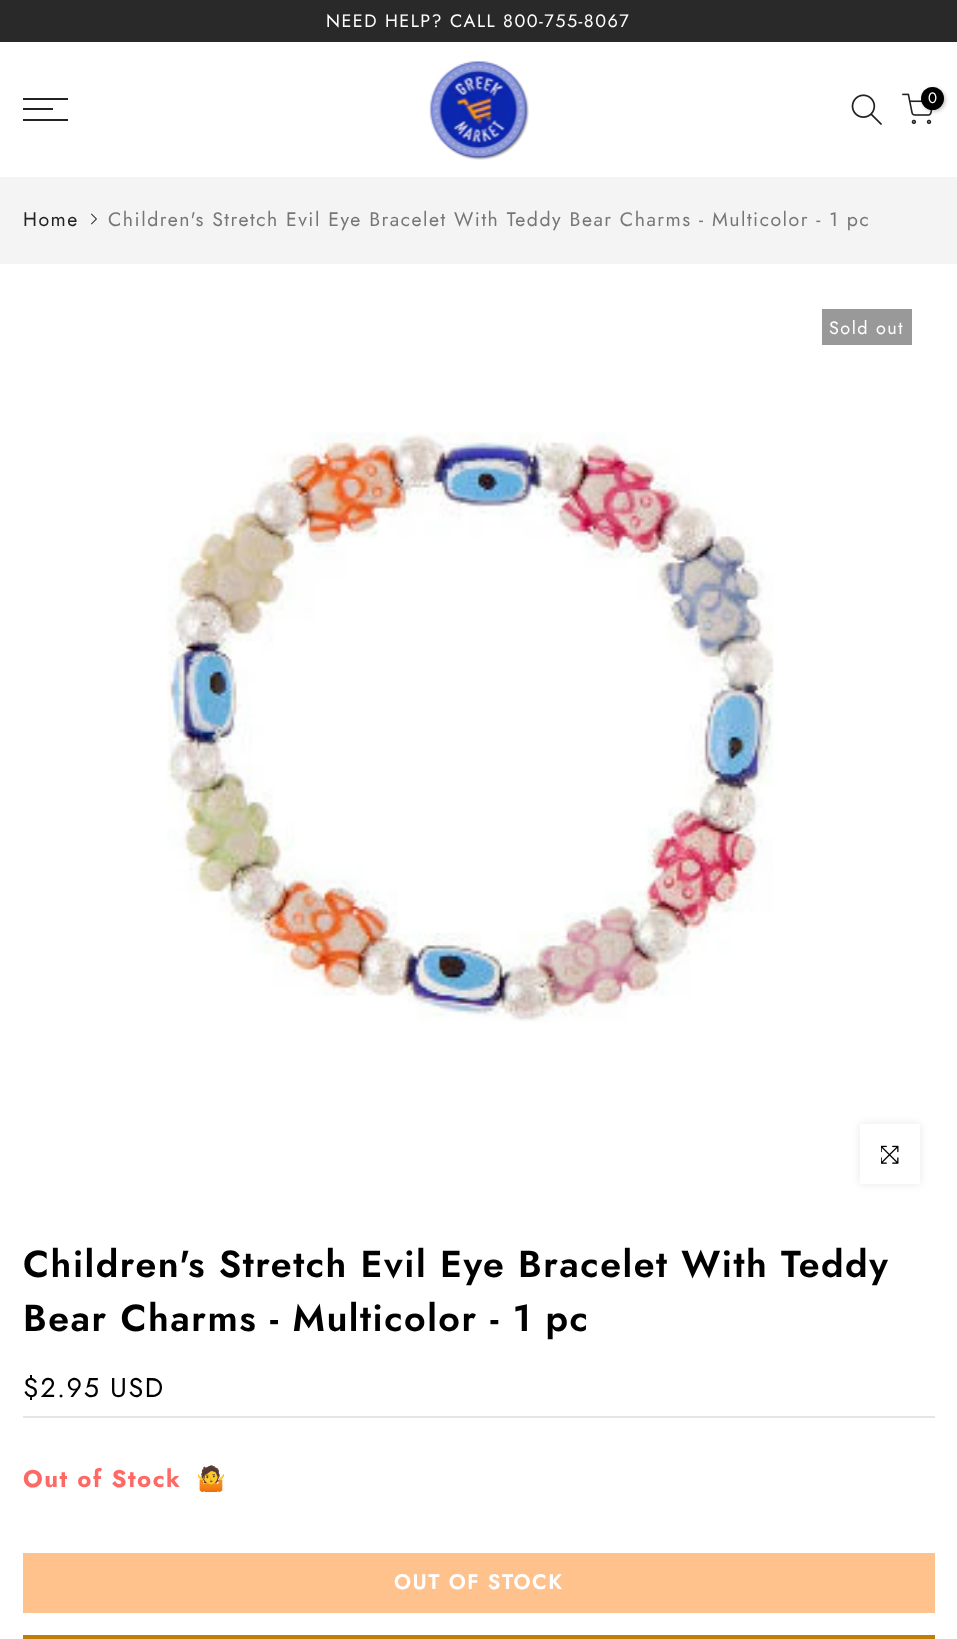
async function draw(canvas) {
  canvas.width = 957;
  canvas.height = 1639;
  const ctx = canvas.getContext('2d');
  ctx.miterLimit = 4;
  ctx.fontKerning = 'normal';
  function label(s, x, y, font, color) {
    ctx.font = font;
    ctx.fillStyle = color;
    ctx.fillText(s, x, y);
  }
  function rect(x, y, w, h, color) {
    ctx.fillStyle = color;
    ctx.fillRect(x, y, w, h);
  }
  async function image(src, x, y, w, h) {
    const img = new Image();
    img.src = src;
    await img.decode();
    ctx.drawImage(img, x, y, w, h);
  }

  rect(0, 0, 957, 1639, '#fff');
  rect(0, 0, 957, 42, '#292929');
  ctx.letterSpacing = '1.5px';
  label('NEED HELP? CALL 800-755-8067', 326, 27, '18px Jost', '#fff');
  rect(23, 98, 45, 2, '#222');
  rect(23, 108, 30, 2, '#222');
  rect(23, 119, 45, 2, '#222');
  await image('assets/img1.png', 429, 61, 100, 99);
  await image('assets/img2.png', 851, 94, 31, 31);
  await image('assets/img3.png', 902, 93, 31, 32);
  ctx.fillStyle = '#0000004d';
  ctx.filter = 'blur(2px)';
  ctx.beginPath();
  ctx.roundRect(923, 89, 22, 22, 11);
  ctx.fill();
  ctx.filter = 'none';
  ctx.fillStyle = '#000';
  ctx.beginPath();
  ctx.arc(932.5, 98.5, 11.5, 0, 2 * Math.PI);
  ctx.fill();
  ctx.letterSpacing = '0px';
  label('0', 928, 103, '15px Jost', '#fff');
  rect(0, 177, 957, 87, '#f4f4f4');
  ctx.letterSpacing = '1.5px';
  label('Home', 23, 226, '19.5px Jost', '#222');
  await image('assets/img4.png', 91, 213, 6, 12);
  label('Children\'s Stretch Evil Eye Bracelet With Teddy Bear Charms - Multicolor - 1 pc', 108, 226, '19.5px Jost', '#767676');
  rect(822, 309, 90, 36, '#999');
  label('Sold out', 829, 334, '18px Jost', '#fff');
  await image('assets/img5.png', 167, 432, 607, 590);
  ctx.fillStyle = '#00000017';
  ctx.filter = 'blur(4px)';
  ctx.beginPath();
  ctx.rect(860, 1124, 60, 60);
  ctx.fill();
  ctx.filter = 'none';
  rect(860, 1124, 60, 60, '#fff');
  await image('assets/img6.png', 881, 1145, 18, 19);
  label('Children\'s Stretch Evil Eye Bracelet With Teddy', 23, 1277, '600 37.5px Jost', '#000');
  label('Bear Charms - Multicolor - 1 pc', 23, 1331, '600 37.5px Jost', '#000');
  rect(23, 1416, 912, 2, '#e5e5e5');
  label('$2.95 USD', 23, 1397, '27px Jost', '#000');
  label('Out of Stock', 23, 1487, 'bold 24px Jost', '#fd6a66');
  label('🤷', 196, 1487, 'bold 24px Noto Color Emoji', '#fd6a66');
  rect(23, 1553, 912, 60, '#ffc28d');
  label('OUT OF STOCK', 394, 1589, '600 21px Jost', '#fff');
  rect(23, 1635, 912, 4, '#bf7e06');
}

draw(document.querySelector('canvas'));
